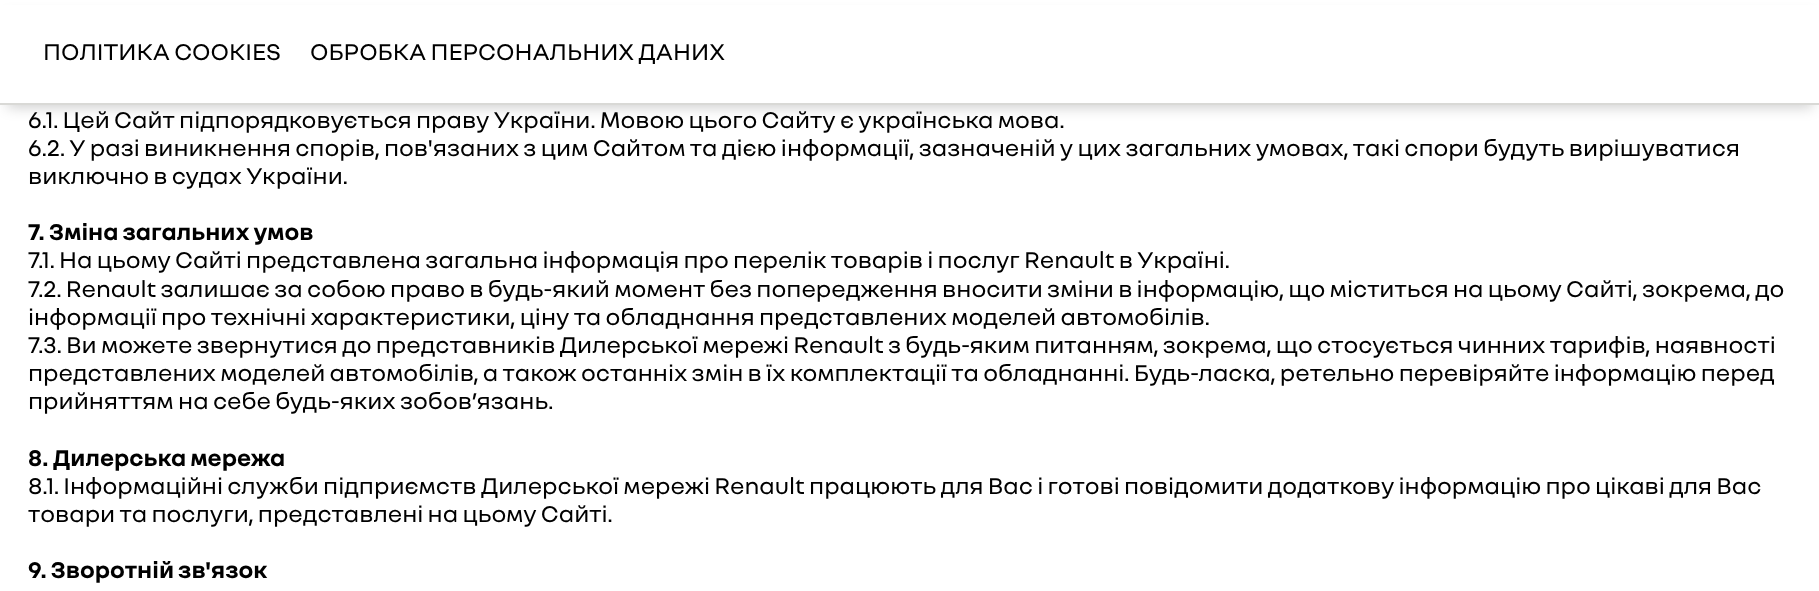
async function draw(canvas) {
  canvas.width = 1819;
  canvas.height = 591;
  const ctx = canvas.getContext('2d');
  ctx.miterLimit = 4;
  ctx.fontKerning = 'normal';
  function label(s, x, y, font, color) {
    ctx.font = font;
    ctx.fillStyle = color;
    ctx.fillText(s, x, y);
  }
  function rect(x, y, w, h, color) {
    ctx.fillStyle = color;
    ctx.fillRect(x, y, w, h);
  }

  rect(0, 0, 1819, 591, '#fff');
  ctx.fillStyle = '#00000033';
  ctx.filter = 'blur(7px)';
  ctx.beginPath();
  ctx.rect(7, 16, 1806, 91);
  ctx.fill();
  ctx.filter = 'none';
  rect(0, 5, 1819, 98, '#fff');
  rect(0, 103, 1819, 2, '#d9d9d6');
  label('ПОЛІТИКА COOKIES', 43, 60, '24.5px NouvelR', '#000');
  label('ОБРОБКА ПЕРСОНАЛЬНИХ ДАНИХ', 310, 60, '24.5px NouvelR', '#000');
  label('6.1. Цей Сайт підпорядковується праву України. Мовою цього Сайту є українська мова.', 28, 128, '24.5px NouvelR', '#000');
  label('6.2. У разі виникнення спорів, пов\'язаних з цим Сайтом та дією інформації, зазначеній у цих загальних умовах, такі спори будуть вирішуватися', 28, 156, '24.5px NouvelR', '#000');
  label('виключно в судах України.', 28, 184, '24.5px NouvelR', '#000');
  label('7. Зміна загальних умов', 28, 240, 'bold 24.5px NouvelR', '#000');
  label('7.1. На цьому Сайті представлена загальна інформація про перелік товарів і послуг Renault в Україні.', 28, 268, '24.5px NouvelR', '#000');
  label('7.2. Renault залишає за собою право в будь-який момент без попередження вносити зміни в інформацію, що міститься на цьому Сайті, зокрема, до', 28, 297, '24.5px NouvelR', '#000');
  label('інформації про технічні характеристики, ціну та обладнання представлених моделей автомобілів.', 28, 325, '24.5px NouvelR', '#000');
  label('7.3. Ви можете звернутися до представників Дилерської мережі Renault з будь-яким питанням, зокрема, що стосується чинних тарифів, наявності', 28, 353, '24.5px NouvelR', '#000');
  label('представлених моделей автомобілів, а також останніх змін в їх комплектації та обладнанні. Будь-ласка, ретельно перевіряйте інформацію перед', 28, 381, '24.5px NouvelR', '#000');
  label('прийняттям на себе будь-яких зобов’язань.', 28, 409, '24.5px NouvelR', '#000');
  label('8. Дилерська мережа', 28, 466, 'bold 24.5px NouvelR', '#000');
  label('8.1. Інформаційні служби підприємств Дилерської мережі Renault працюють для Вас і готові повідомити додаткову інформацію про цікаві для Вас', 28, 494, '24.5px NouvelR', '#000');
  label('товари та послуги, представлені на цьому Сайті.', 28, 522, '24.5px NouvelR', '#000');
  label('9. Зворотній зв\'язок', 28, 578, 'bold 24.5px NouvelR', '#000');
}

draw(document.querySelector('canvas'));
